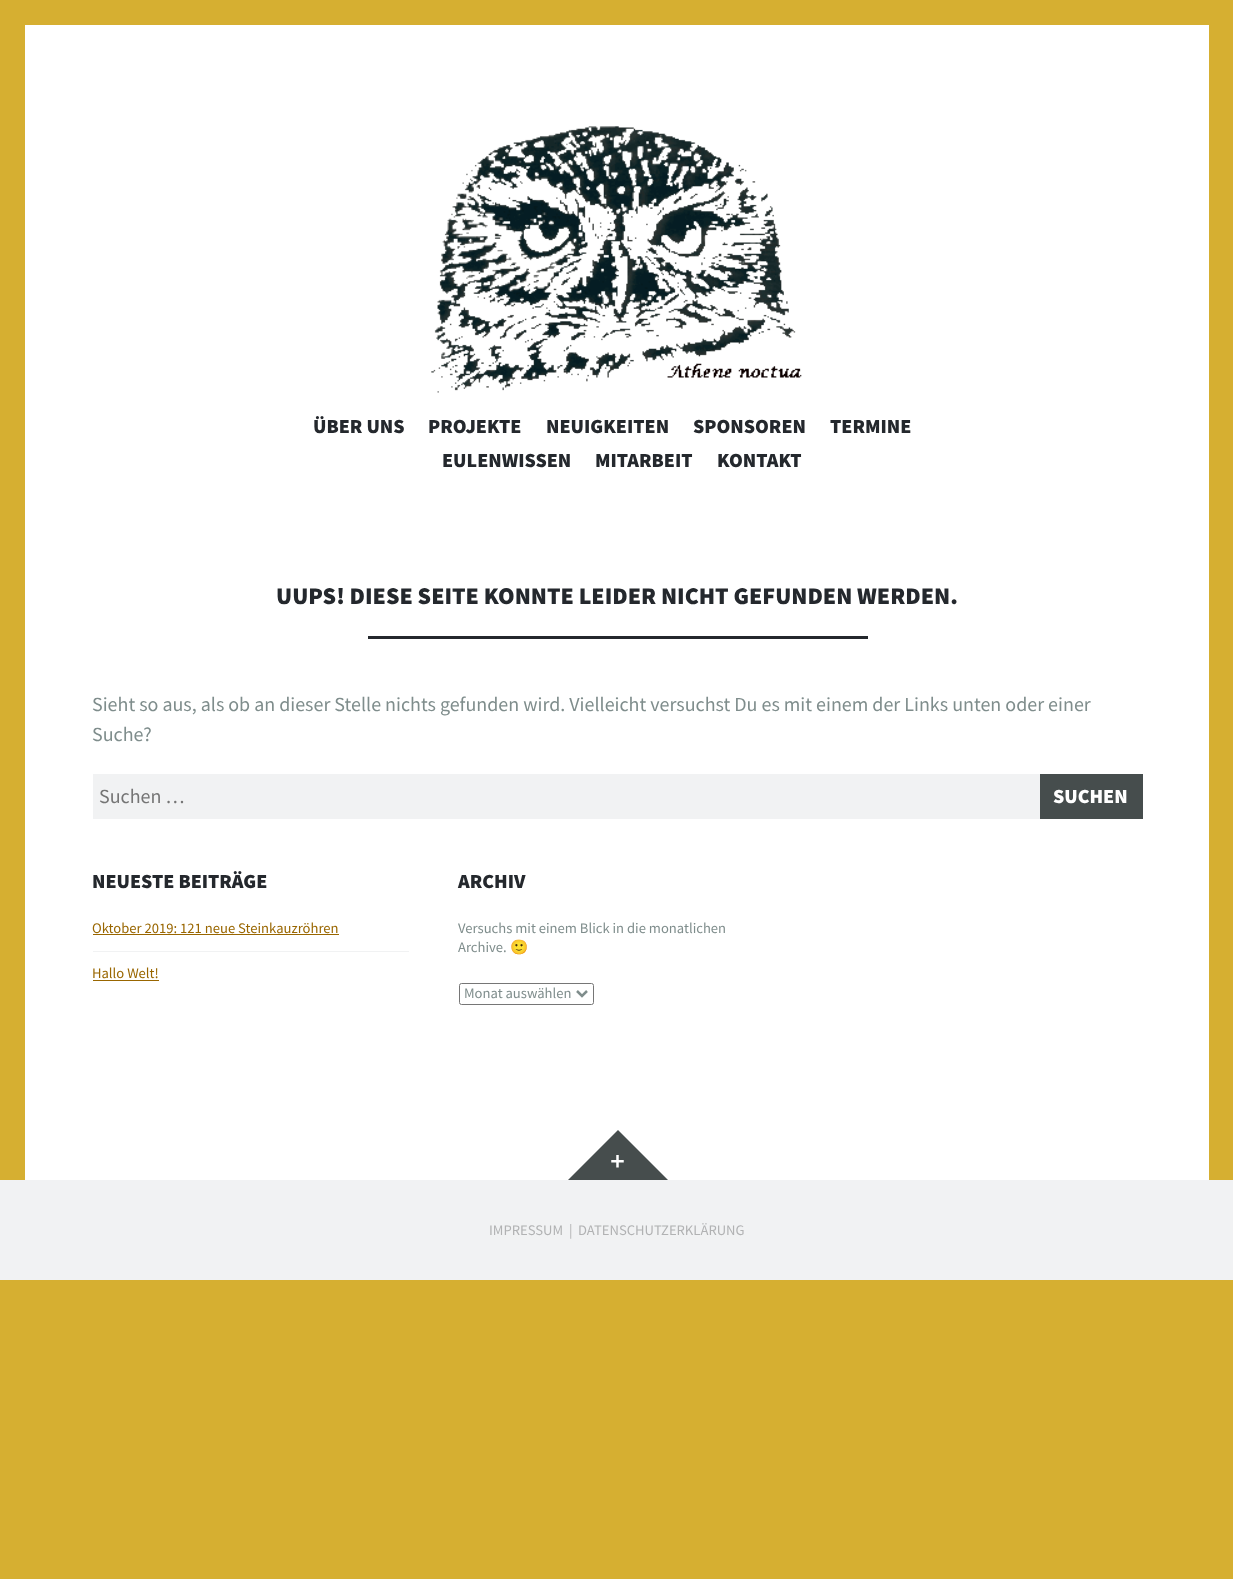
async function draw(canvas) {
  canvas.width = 1233;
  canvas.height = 1579;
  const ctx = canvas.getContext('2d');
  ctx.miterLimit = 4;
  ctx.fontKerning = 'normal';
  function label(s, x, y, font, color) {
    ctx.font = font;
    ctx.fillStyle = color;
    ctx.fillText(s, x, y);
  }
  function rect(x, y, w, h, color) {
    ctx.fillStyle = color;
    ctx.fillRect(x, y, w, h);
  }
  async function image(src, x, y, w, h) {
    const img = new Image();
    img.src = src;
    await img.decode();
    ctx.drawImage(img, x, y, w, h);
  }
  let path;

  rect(0, 0, 1233, 1579, '#d6af31');
  rect(25, 25, 1184, 1155, '#fff');
  await image('assets/img1.png', 431, 126, 371, 267);
  label('ÜBER UNS', 313, 433, '900 20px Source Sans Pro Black', '#24282d');
  label('PROJEKTE', 428, 433, '900 20px Source Sans Pro Black', '#24282d');
  label('NEUIGKEITEN', 546, 433, '900 20px Source Sans Pro Black', '#24282d');
  label('SPONSOREN', 693, 433, '900 20px Source Sans Pro Black', '#24282d');
  label('TERMINE', 830, 433, '900 20px Source Sans Pro Black', '#24282d');
  label('EULENWISSEN', 442, 467, '900 20px Source Sans Pro Black', '#24282d');
  label('MITARBEIT', 595, 467, '900 20px Source Sans Pro Black', '#24282d');
  label('KONTAKT', 717, 467, '900 20px Source Sans Pro Black', '#24282d');
  label('UUPS! DIESE SEITE KONNTE LEIDER NICHT GEFUNDEN WERDEN.', 276, 604, '900 24px Source Sans Pro Black', '#24282d');
  rect(368, 636, 500, 3, '#24282d');
  label('Sieht so aus, als ob an dieser Stelle nichts gefunden wird. Vielleicht versuchst Du es mit einem der Links unten oder einer', 92, 711, '20px Source Sans Pro', '#7f8d8c');
  label('Suche?', 92, 741, '20px Source Sans Pro', '#7f8d8c');
  rect(93, 774, 947, 45, '#f1f2f3');
  label('Suchen …', 99, 803, '20px Source Sans Pro', '#757575');
  rect(1040, 774, 103, 45, '#464d4d');
  label('SUCHEN', 1053, 803, '900 20px Source Sans Pro Black', '#fff');
  label('NEUESTE BEITRÄGE', 92, 888, '900 20px Source Sans Pro Black', '#24282d');
  rect(93, 951, 316, 1, '#f1f2f3');
  label('Oktober 2019: 121 neue Steinkauzröhren', 92, 933, '14.6px Source Sans Pro', '#960');
  rect(93, 934, 246, 1, '#960');
  label('Hallo Welt!', 92, 978, '14.6px Source Sans Pro', '#960');
  rect(93, 980, 66, 1, '#960');
  label('ARCHIV', 458, 888, '900 20px Source Sans Pro Black', '#24282d');
  label('Versuchs mit einem Blick in die monatlichen', 458, 933, '14.6px Source Sans Pro', '#7f8d8c');
  label('Archive.', 458, 952, '14.6px Source Sans Pro', '#7f8d8c');
  label('🙂', 510, 952, '14.6px Noto Color Emoji', '#7f8d8c');
  ctx.beginPath();
  ctx.roundRect(459.5, 983.5, 134, 21, 2);
  ctx.strokeStyle = '#767676';
  ctx.stroke();
  path = new Path2D('M577 991L582 996L587 991');
  ctx.strokeStyle = '#7f8d8c';
  ctx.lineWidth = 2.5;
  ctx.stroke(path);
  label('Monat auswählen', 464, 998, '14.6px Source Sans Pro', '#7f8d8c');
  ctx.fillStyle = '#464d4d';
  path = new Path2D('M668 1180H568L618 1130Z');
  ctx.fill(path);
  await image('assets/img2.png', 611, 1155, 13, 13);
  rect(0, 1180, 1233, 100, '#f1f2f3');
  label('IMPRESSUM', 489, 1235, '14.6px Source Sans Pro', '#b1b2b3');
  label('|', 569, 1235, '14.6px Source Sans Pro', '#b1b2b3');
  label('DATENSCHUTZERKLÄRUNG', 578, 1235, '14.6px Source Sans Pro', '#b1b2b3');
}

draw(document.querySelector('canvas'));
